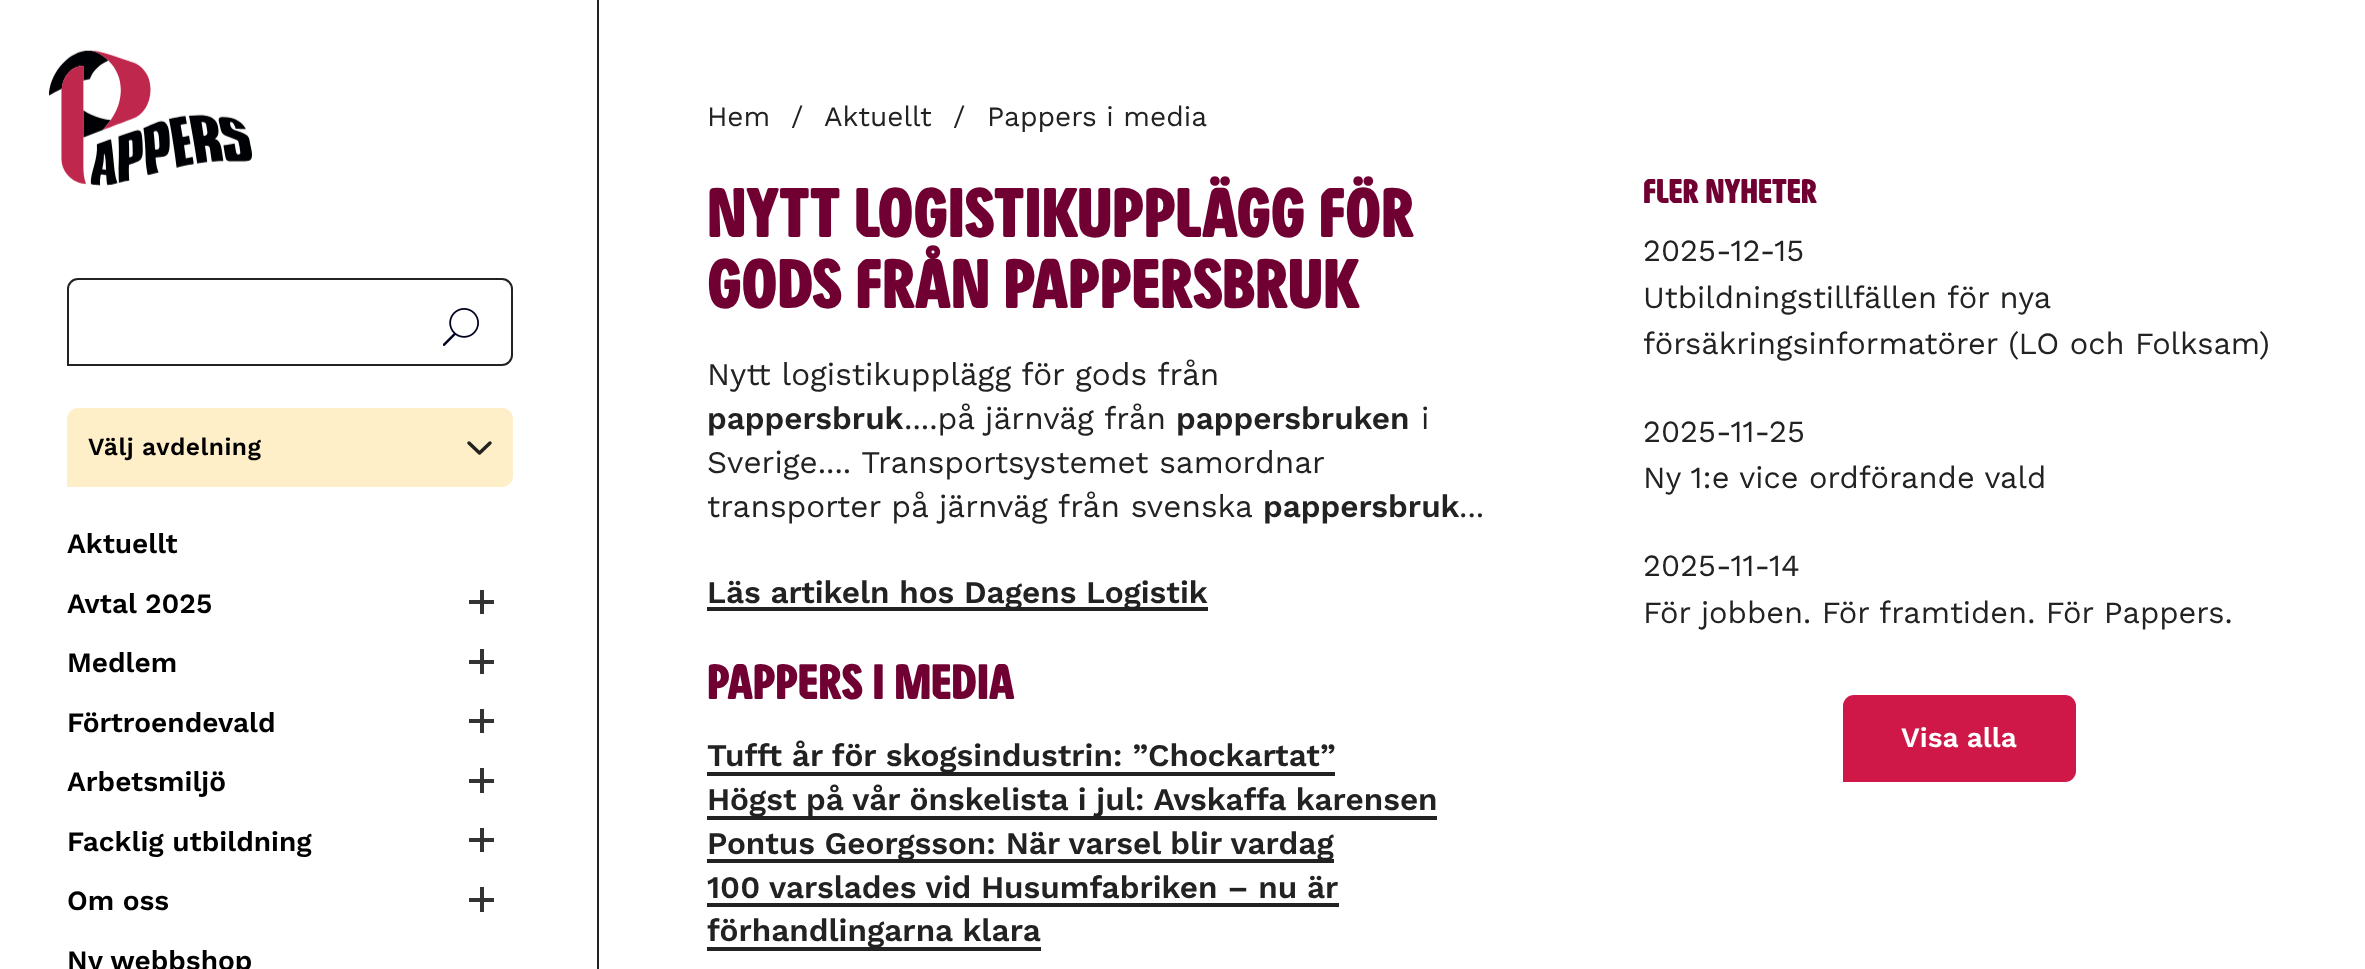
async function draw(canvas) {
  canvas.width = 2365;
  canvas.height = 969;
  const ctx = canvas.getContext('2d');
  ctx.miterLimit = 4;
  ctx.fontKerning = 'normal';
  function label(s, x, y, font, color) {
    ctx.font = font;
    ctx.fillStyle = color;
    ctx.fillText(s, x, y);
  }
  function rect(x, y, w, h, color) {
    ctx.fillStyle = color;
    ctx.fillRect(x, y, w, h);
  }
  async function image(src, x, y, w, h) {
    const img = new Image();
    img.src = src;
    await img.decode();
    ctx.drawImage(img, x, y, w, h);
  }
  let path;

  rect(0, 0, 2365, 969, '#fff');
  rect(597, 0, 2, 969, '#222');
  await image('assets/img1.png', 49, 50, 203, 136);
  ctx.beginPath();
  ctx.roundRect(68, 279, 444, 86, [10, 10, 10, 0]);
  ctx.strokeStyle = '#222';
  ctx.lineWidth = 2;
  ctx.stroke();
  await image('assets/img2.png', 443, 308, 36, 38);
  ctx.fillStyle = '#ffefc9';
  ctx.beginPath();
  ctx.roundRect(67, 408, 446, 79, [11, 11, 11, 0]);
  ctx.fill();
  path = new Path2D('M469 443L479.5 453L490 443');
  ctx.lineWidth = 3.5;
  ctx.lineCap = 'round';
  ctx.lineJoin = 'round';
  ctx.stroke(path);
  ctx.letterSpacing = '0.5px';
  label('Välj avdelning', 88, 455, '600 24.5px Work Sans', '#000');
  ctx.letterSpacing = '0px';
  label('Aktuellt', 67, 553, '600 28px Work Sans', '#000');
  label('Avtal 2025', 67, 613, '600 28px Work Sans', '#000');
  rect(469, 600, 25, 4, '#333');
  rect(480, 590, 4, 24, '#333');
  label('Medlem', 67, 672, '600 28px Work Sans', '#000');
  rect(469, 660, 25, 4, '#333');
  rect(480, 649, 4, 25, '#333');
  label('Förtroendevald', 67, 732, '600 28px Work Sans', '#000');
  rect(469, 719, 25, 4, '#333');
  rect(480, 709, 4, 24, '#333');
  label('Arbetsmiljö', 67, 791, '600 28px Work Sans', '#000');
  rect(469, 779, 25, 4, '#333');
  rect(480, 768, 4, 25, '#333');
  label('Facklig utbildning', 67, 851, '600 28px Work Sans', '#000');
  rect(469, 838, 25, 4, '#333');
  rect(480, 828, 4, 24, '#333');
  label('Om oss', 67, 910, '600 28px Work Sans', '#000');
  rect(469, 898, 25, 4, '#333');
  rect(480, 887, 4, 25, '#333');
  label('Ny webbshop', 67, 970, '600 28px Work Sans', '#000');
  label('Hem', 707, 126, '28px Work Sans', '#222');
  label('/', 791, 126, '28px Work Sans', '#222');
  label('Aktuellt', 824, 126, '28px Work Sans', '#222');
  label('/', 953, 126, '28px Work Sans', '#222');
  label('Pappers i media', 987, 126, '28px Work Sans', '#222');
  ctx.letterSpacing = '1.25px';
  label('Nytt logistikupplägg för', 707, 237, 'bold 63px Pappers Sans', '#700032');
  label('gods från pappersbruk', 707, 308, 'bold 63px Pappers Sans', '#700032');
  ctx.letterSpacing = '0px';
  label('Nytt logistikupplägg för gods från', 707, 385, '31.5px Work Sans', '#222');
  label('pappersbruk', 707, 429, '600 31.5px Work Sans', '#222');
  label('....på järnväg från', 904, 429, '31.5px Work Sans', '#222');
  label('pappersbruken', 1176, 429, '600 31.5px Work Sans', '#222');
  label('i', 1421, 429, '31.5px Work Sans', '#222');
  label('Sverige.... Transportsystemet samordnar', 707, 473, '31.5px Work Sans', '#222');
  label('transporter på järnväg från svenska', 707, 517, '31.5px Work Sans', '#222');
  label('pappersbruk', 1263, 517, '600 31.5px Work Sans', '#222');
  label('...', 1459, 517, '31.5px Work Sans', '#222');
  rect(707, 607, 501, 4, '#222');
  label('Läs artikeln hos Dagens Logistik', 707, 603, '600 31.5px Work Sans', '#222');
  ctx.letterSpacing = '0.9px';
  label('Pappers i media', 707, 699, 'bold 44.75px Pappers Sans', '#700032');
  rect(707, 772, 628, 4, '#222');
  ctx.letterSpacing = '0px';
  label('Tufft år för skogsindustrin: ”Chockartat”', 707, 766, '600 31.5px Work Sans', '#222');
  rect(707, 816, 730, 4, '#222');
  label('Högst på vår önskelista i jul: Avskaffa karensen', 707, 810, '600 31.5px Work Sans', '#222');
  rect(707, 859, 627, 4, '#222');
  label('Pontus Georgsson: När varsel blir vardag', 707, 854, '600 31.5px Work Sans', '#222');
  label('100 varslades vid Husumfabriken – nu är', 707, 898, '600 31.5px Work Sans', '#222');
  rect(707, 903, 632, 4, '#222');
  rect(707, 947, 334, 4, '#222');
  label('förhandlingarna klara', 707, 941, '600 31.5px Work Sans', '#222');
  ctx.letterSpacing = '0.6px';
  label('Fler nyheter', 1643, 203, 'bold 30.8px Pappers Sans', '#700032');
  ctx.letterSpacing = '0px';
  label('2025-12-15', 1643, 261, '30.8px Work Sans', '#222');
  label('Utbildningstillfällen för nya', 1643, 308, '30.8px Work Sans', '#222');
  label('försäkringsinformatörer (LO och Folksam)', 1643, 354, '30.8px Work Sans', '#222');
  label('2025-11-25', 1643, 442, '30.8px Work Sans', '#222');
  label('Ny 1:e vice ordförande vald', 1643, 488, '30.8px Work Sans', '#222');
  label('2025-11-14', 1643, 576, '30.8px Work Sans', '#222');
  label('För jobben. För framtiden. För Pappers.', 1643, 623, '30.8px Work Sans', '#222');
  ctx.fillStyle = '#d01848';
  ctx.beginPath();
  ctx.roundRect(1843, 695, 233, 87, [11, 11, 11, 0]);
  ctx.fill();
  label('Visa alla', 1901, 747, '600 28px Work Sans', '#fff');
}

draw(document.querySelector('canvas'));
